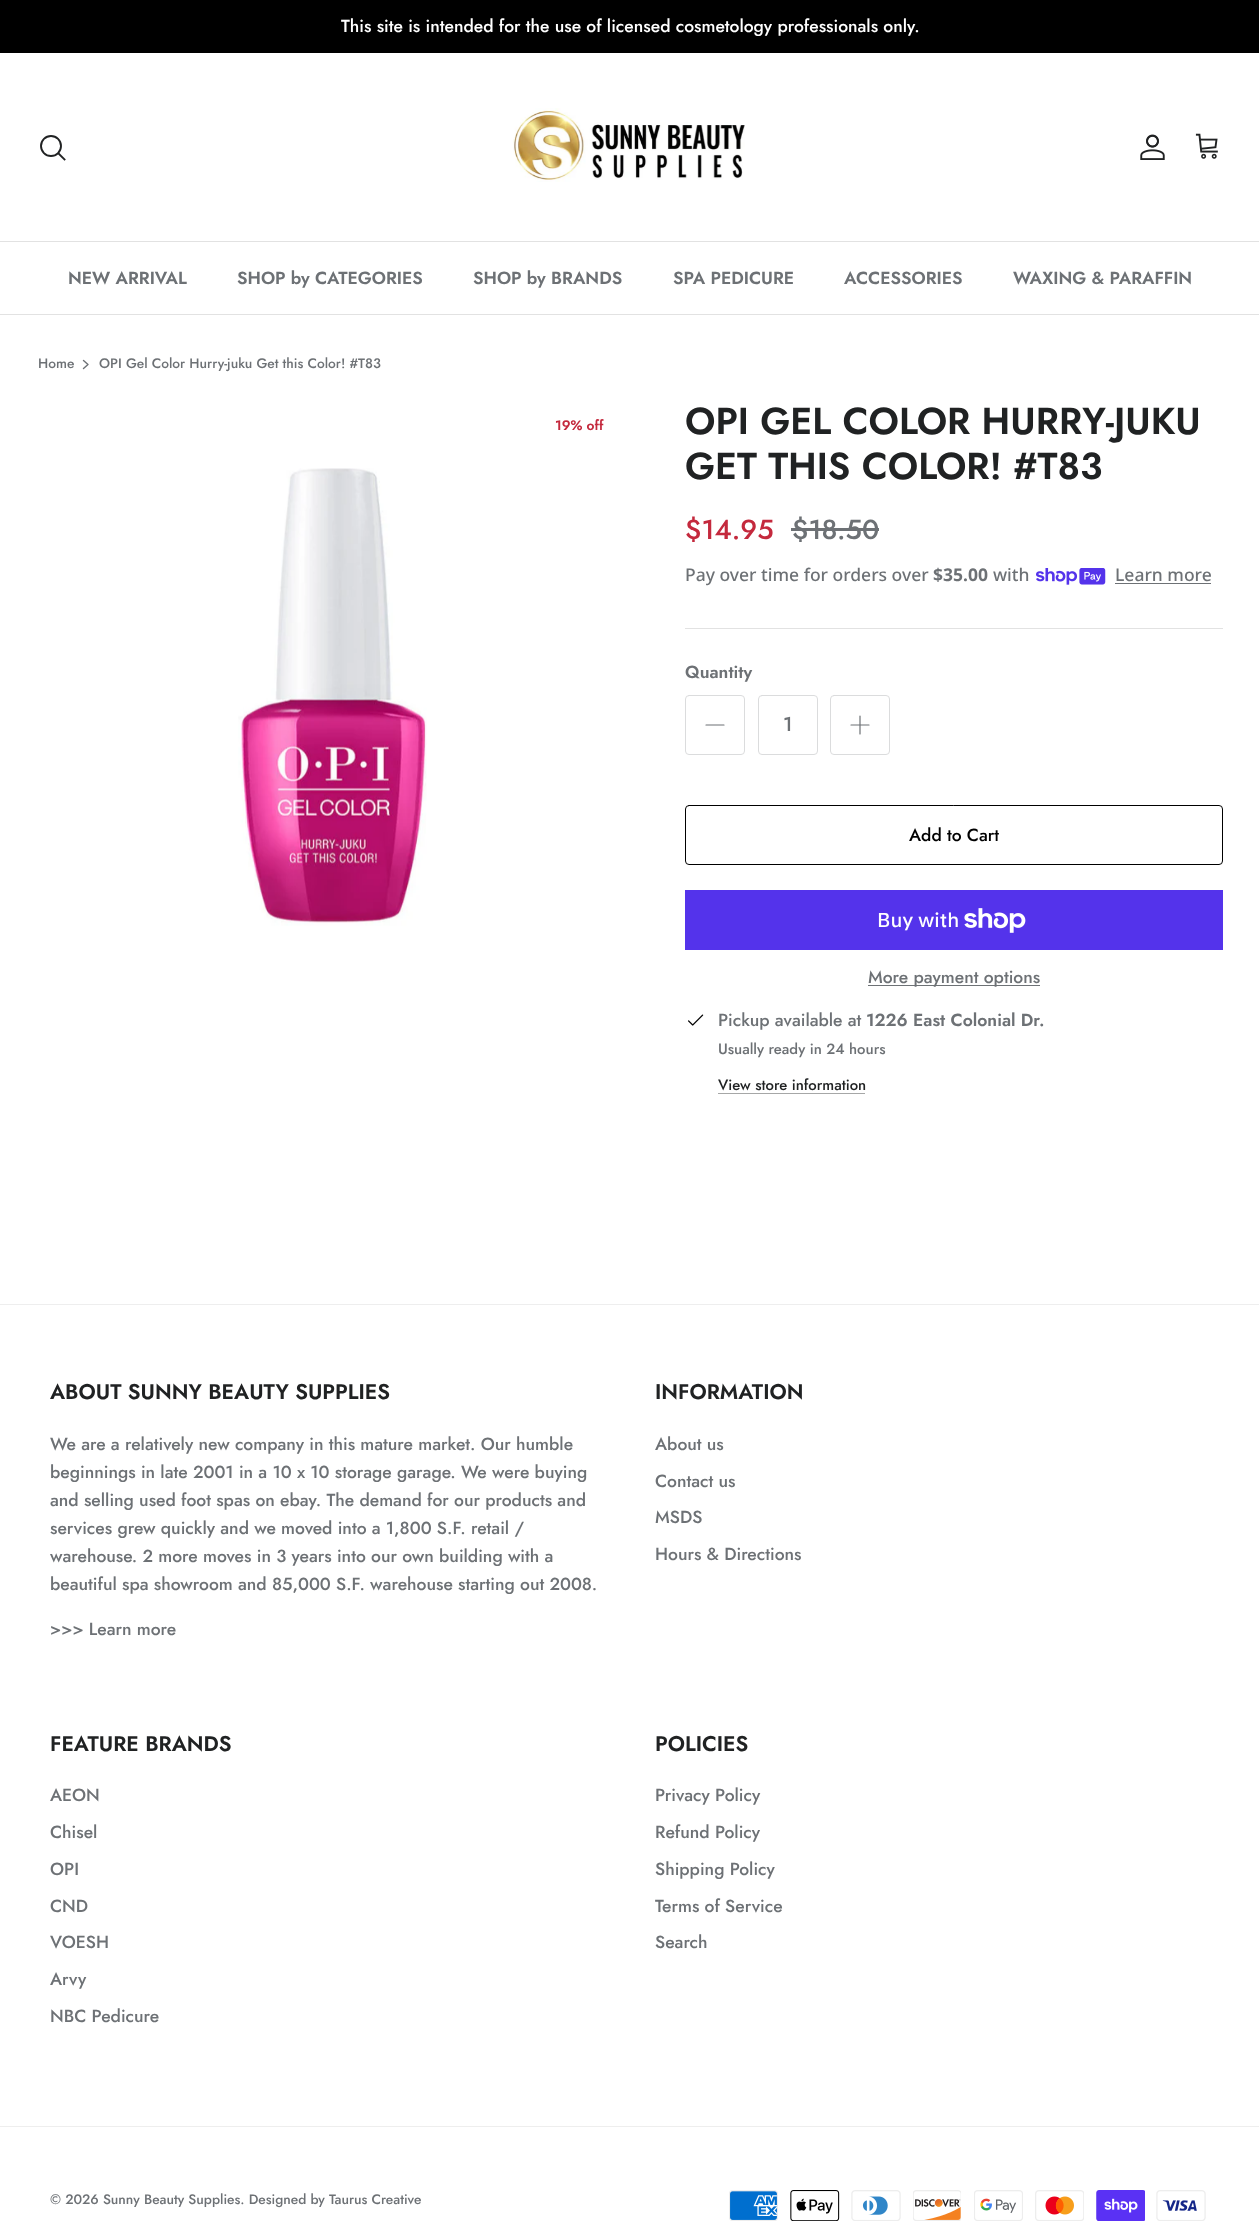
async function draw(canvas) {
  canvas.width = 1259;
  canvas.height = 2233;
  const ctx = canvas.getContext('2d');
  ctx.miterLimit = 4;
  ctx.fontKerning = 'normal';
  function label(s, x, y, font, color) {
    ctx.font = font;
    ctx.fillStyle = color;
    ctx.fillText(s, x, y);
  }
  function rect(x, y, w, h, color) {
    ctx.fillStyle = color;
    ctx.fillRect(x, y, w, h);
  }
  async function image(src, x, y, w, h) {
    const img = new Image();
    img.src = src;
    await img.decode();
    ctx.drawImage(img, x, y, w, h);
  }
  let path;

  rect(0, 0, 1259, 2233, '#fff');
  rect(0, 0, 1259, 53, '#000');
  label('This site is intended for the use of licensed cosmetology professionals only.', 341, 32, '500 17.5px Jost', '#fff');
  rect(0, 241, 1259, 1, '#e2e2e2');
  ctx.beginPath();
  ctx.arc(51, 146, 10, 0, 2 * Math.PI);
  ctx.strokeStyle = '#202223';
  ctx.lineWidth = 1.9;
  ctx.stroke();
  path = new Path2D('M58.5 153.5L64.5 159.5');
  ctx.lineCap = 'square';
  ctx.stroke(path);
  await image('assets/img1.png', 513, 108, 232, 74);
  await image('assets/img2.png', 1140, 134, 25, 26);
  await image('assets/img3.png', 1195, 133, 23, 26);
  rect(0, 314, 1259, 1, '#e2e2e2');
  label('NEW ARRIVAL', 68, 284, '600 17.5px Jost', '#6d7175');
  label('SHOP by CATEGORIES', 237, 284, '600 17.5px Jost', '#6d7175');
  label('SHOP by BRANDS', 473, 284, '600 17.5px Jost', '#6d7175');
  label('SPA PEDICURE', 673, 284, '600 17.5px Jost', '#6d7175');
  label('ACCESSORIES', 844, 284, '600 17.5px Jost', '#6d7175');
  label('WAXING & PARAFFIN', 1013, 284, '600 17.5px Jost', '#6d7175');
  label('Home', 38, 368, '500 13.75px Jost', '#6d7175');
  path = new Path2D('M83.5 368.5L88 364.5L83.5 360.5');
  ctx.strokeStyle = '#6d7175';
  ctx.lineWidth = 1.4;
  ctx.lineCap = 'round';
  ctx.lineJoin = 'round';
  ctx.stroke(path);
  label('OPI Gel Color Hurry-juku Get this Color! #T83', 99, 368, '500 13.75px Jost', '#6d7175');
  label('19% off', 555, 430, '600 13.75px Jost', '#c4293d');
  await image('assets/img4.png', 238, 468, 189, 458);
  label('OPI GEL COLOR HURRY-JUKU', 685, 434, '600 37.5px Jost', '#202223');
  label('GET THIS COLOR! #T83', 685, 479, '600 37.5px Jost', '#202223');
  label('$14.95', 685, 539, '500 27.5px Jost', '#c4293d');
  label('$18.50', 792, 539, '500 27.5px Jost', '#6d7175');
  rect(791, 528, 88, 3, '#6d7175');
  label('Pay over time for orders over', 685, 581, '500 17.5px Noto Sans', '#6d7175');
  label('$35.00', 933, 581, 'bold 17.5px Noto Sans', '#6d7175');
  label('with', 993, 581, '500 17.5px Noto Sans', '#6d7175');
  await image('assets/img5.png', 1036, 568, 70, 17);
  label('Learn more', 1115, 581, '500 17.5px Noto Sans', '#6d7175');
  rect(1115, 583, 96, 1, '#6d7175');
  rect(685, 628, 538, 1, '#e2e2e2');
  label('Quantity', 685, 678, '600 17.5px Jost', '#6d7175');
  ctx.beginPath();
  ctx.roundRect(685.5, 695.5, 59, 59, 3.5);
  ctx.strokeStyle = '#dbdcdd';
  ctx.lineWidth = 1;
  ctx.lineJoin = 'miter';
  ctx.stroke();
  path = new Path2D('M706 725H724');
  ctx.strokeStyle = '#6d7175';
  ctx.lineWidth = 1.2;
  ctx.lineJoin = 'round';
  ctx.stroke(path);
  ctx.beginPath();
  ctx.roundRect(758.5, 695.5, 59, 59, 3.5);
  ctx.strokeStyle = '#dbdcdd';
  ctx.lineWidth = 1;
  ctx.lineJoin = 'miter';
  ctx.stroke();
  label('1', 783, 731, '500 20px Jost', '#6d7175');
  ctx.beginPath();
  ctx.roundRect(830.5, 695.5, 59, 59, 3.5);
  ctx.stroke();
  path = new Path2D('M860 716V734M851 725H869');
  ctx.strokeStyle = '#6d7175';
  ctx.lineWidth = 1.2;
  ctx.lineJoin = 'round';
  ctx.stroke(path);
  ctx.beginPath();
  ctx.roundRect(685.5, 805.5, 537, 59, 3.5);
  ctx.strokeStyle = '#000';
  ctx.lineWidth = 1;
  ctx.lineJoin = 'miter';
  ctx.stroke();
  label('Add to Cart', 909, 841, '500 17.5px Jost', '#000');
  rect(685, 890, 538, 60, '#5433eb');
  label('Buy with', 877, 927, '500 20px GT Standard', '#fff');
  await image('assets/img6.png', 964, 908, 62, 25);
  rect(868, 985, 172, 1, '#6d7175');
  label('More payment options', 868, 983, '500 17.5px Jost', '#6d7175');
  await image('assets/img7.png', 688, 1014, 16, 12);
  label('Pickup available at', 718, 1026, '500 17.5px Jost', '#6d7175');
  label('1226 East Colonial Dr.', 866, 1026, '600 17.5px Jost', '#6d7175');
  label('Usually ready in 24 hours', 718, 1054, '500 14.9px Jost', '#6d7175');
  label('View store information', 718, 1090, '500 14.9px Jost', '#202223');
  rect(718, 1093, 147, 1, '#a6a7a7');
  rect(0, 1304, 1259, 1, '#eee');
  label('ABOUT SUNNY BEAUTY SUPPLIES', 50, 1399, '600 21.25px Jost', '#202223');
  label('We are a relatively new company in this mature market. Our humble', 50, 1450, '500 17.5px Jost', '#6d7175');
  label('beginnings in late 2001 in a 10 x 10 storage garage. We were buying', 50, 1478, '500 17.5px Jost', '#6d7175');
  label('and selling used foot spas on ebay. The demand for our products and', 50, 1506, '500 17.5px Jost', '#6d7175');
  label('services grew quickly and we moved into a 1,800 S.F. retail /', 50, 1534, '500 17.5px Jost', '#6d7175');
  label('warehouse. 2 more moves in 3 years into our own building with a', 50, 1562, '500 17.5px Jost', '#6d7175');
  label('beautiful spa showroom and 85,000 S.F. warehouse starting out 2008.', 50, 1590, '500 17.5px Jost', '#6d7175');
  label('>>> Learn more', 50, 1635, '500 17.5px Jost', '#6d7175');
  label('INFORMATION', 655, 1399, '600 21.25px Jost', '#202223');
  label('About us', 655, 1450, '500 17.5px Jost', '#6d7175');
  label('Contact us', 655, 1487, '500 17.5px Jost', '#6d7175');
  label('MSDS', 655, 1523, '500 17.5px Jost', '#6d7175');
  label('Hours & Directions', 655, 1560, '500 17.5px Jost', '#6d7175');
  label('FEATURE BRANDS', 50, 1751, '600 21.25px Jost', '#202223');
  label('AEON', 50, 1801, '500 17.5px Jost', '#6d7175');
  label('Chisel', 50, 1838, '500 17.5px Jost', '#6d7175');
  label('OPI', 50, 1875, '500 17.5px Jost', '#6d7175');
  label('CND', 50, 1912, '500 17.5px Jost', '#6d7175');
  label('VOESH', 50, 1948, '500 17.5px Jost', '#6d7175');
  label('Arvy', 50, 1985, '500 17.5px Jost', '#6d7175');
  label('NBC Pedicure', 50, 2022, '500 17.5px Jost', '#6d7175');
  label('POLICIES', 655, 1751, '600 21.25px Jost', '#202223');
  label('Privacy Policy', 655, 1801, '500 17.5px Jost', '#6d7175');
  label('Refund Policy', 655, 1838, '500 17.5px Jost', '#6d7175');
  label('Shipping Policy', 655, 1875, '500 17.5px Jost', '#6d7175');
  label('Terms of Service', 655, 1912, '500 17.5px Jost', '#6d7175');
  label('Search', 655, 1948, '500 17.5px Jost', '#6d7175');
  rect(0, 2126, 1259, 1, '#eee');
  label('© 2026 Sunny Beauty Supplies. Designed by Taurus Creative', 50, 2204, '500 13.75px Jost', '#6d7175');
  await image('assets/img8.png', 729, 2190, 49, 31);
  await image('assets/img9.png', 790, 2190, 50, 31);
  await image('assets/img10.png', 851, 2190, 50, 31);
  await image('assets/img11.png', 913, 2190, 48, 31);
  await image('assets/img12.png', 974, 2190, 49, 31);
  await image('assets/img13.png', 1035, 2190, 49, 31);
  await image('assets/img14.png', 1096, 2190, 49, 31);
  await image('assets/img15.png', 1156, 2190, 50, 31);
}

draw(document.querySelector('canvas'));
